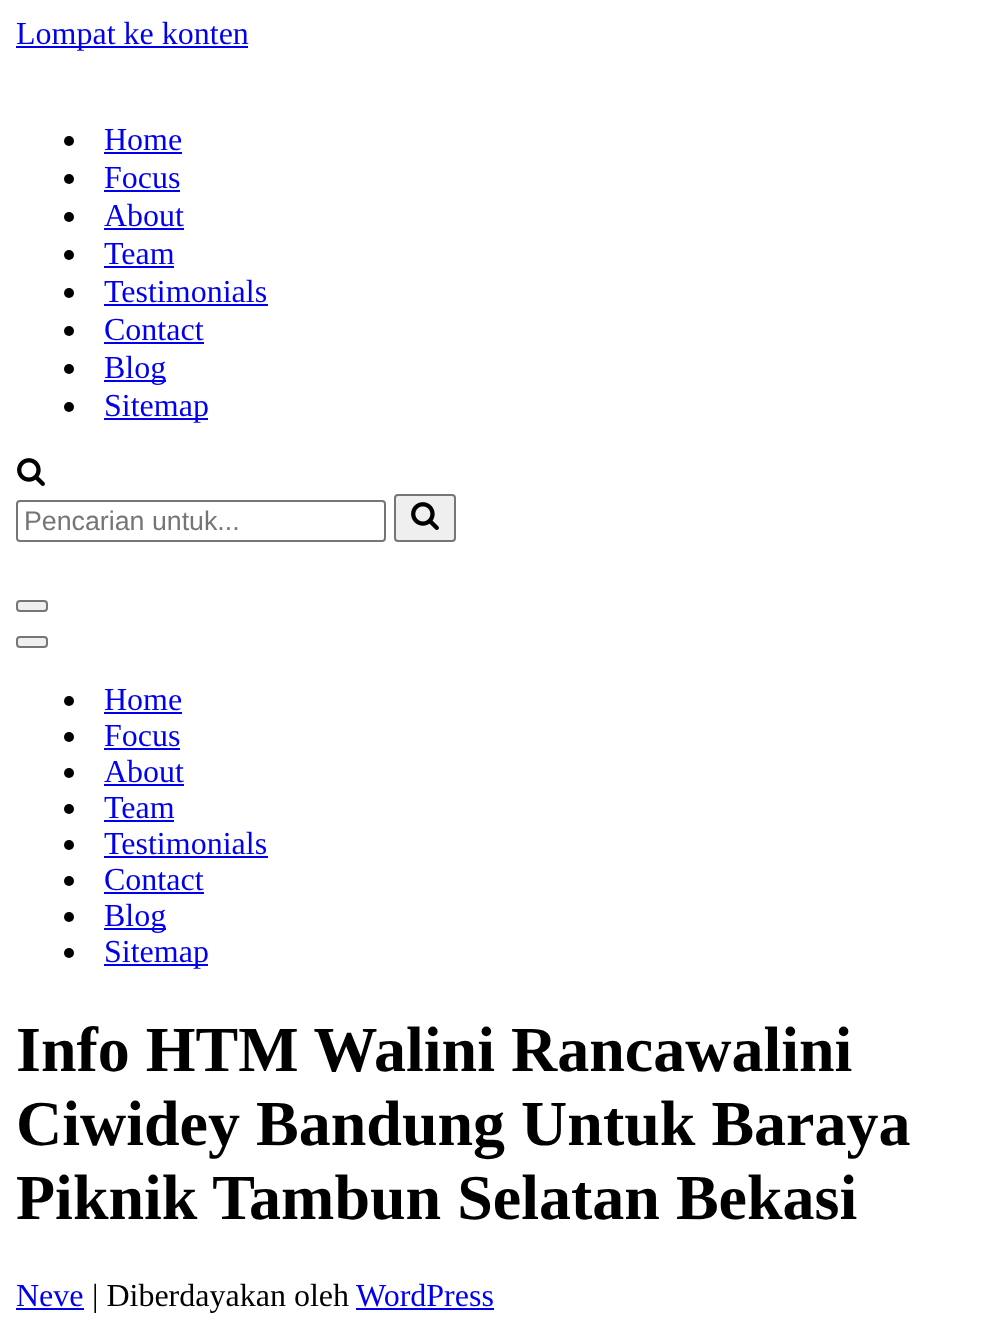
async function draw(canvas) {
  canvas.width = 994;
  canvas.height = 1331;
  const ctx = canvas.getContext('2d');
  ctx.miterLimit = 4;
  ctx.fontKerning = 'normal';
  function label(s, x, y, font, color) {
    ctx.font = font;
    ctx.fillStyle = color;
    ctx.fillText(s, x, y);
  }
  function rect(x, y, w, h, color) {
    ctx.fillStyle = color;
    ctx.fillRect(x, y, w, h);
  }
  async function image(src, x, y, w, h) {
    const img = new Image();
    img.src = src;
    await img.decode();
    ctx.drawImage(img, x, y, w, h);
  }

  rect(0, 0, 994, 1331, '#fff');
  rect(16, 46, 232, 2, '#00e');
  label('Lompat ke konten', 16, 44, '32px Liberation Serif', '#00e');
  ctx.fillStyle = '#000';
  ctx.beginPath();
  ctx.arc(69, 141, 5, 0, 2 * Math.PI);
  ctx.fill();
  label('Home', 104, 150, '32px Liberation Serif', '#00e');
  rect(104, 152, 78, 2, '#00e');
  ctx.fillStyle = '#000';
  ctx.beginPath();
  ctx.arc(69, 179, 5, 0, 2 * Math.PI);
  ctx.fill();
  label('Focus', 104, 188, '32px Liberation Serif', '#00e');
  rect(104, 190, 76, 2, '#00e');
  ctx.fillStyle = '#000';
  ctx.beginPath();
  ctx.arc(69, 217, 5, 0, 2 * Math.PI);
  ctx.fill();
  label('About', 104, 226, '32px Liberation Serif', '#00e');
  rect(104, 228, 80, 2, '#00e');
  ctx.fillStyle = '#000';
  ctx.beginPath();
  ctx.arc(69, 255, 5, 0, 2 * Math.PI);
  ctx.fill();
  label('Team', 104, 264, '32px Liberation Serif', '#00e');
  rect(104, 266, 70, 2, '#00e');
  ctx.fillStyle = '#000';
  ctx.beginPath();
  ctx.arc(69, 293, 5, 0, 2 * Math.PI);
  ctx.fill();
  label('Testimonials', 104, 302, '32px Liberation Serif', '#00e');
  rect(104, 304, 164, 2, '#00e');
  ctx.fillStyle = '#000';
  ctx.beginPath();
  ctx.arc(69, 331, 5, 0, 2 * Math.PI);
  ctx.fill();
  label('Contact', 104, 340, '32px Liberation Serif', '#00e');
  rect(104, 342, 100, 2, '#00e');
  ctx.fillStyle = '#000';
  ctx.beginPath();
  ctx.arc(69, 369, 5, 0, 2 * Math.PI);
  ctx.fill();
  rect(104, 380, 62, 2, '#00e');
  label('Blog', 104, 378, '32px Liberation Serif', '#00e');
  ctx.fillStyle = '#000';
  ctx.beginPath();
  ctx.arc(69, 407, 5, 0, 2 * Math.PI);
  ctx.fill();
  rect(104, 418, 104, 2, '#00e');
  label('Sitemap', 104, 416, '32px Liberation Serif', '#00e');
  await image('assets/img1.png', 17, 458, 28, 28);
  ctx.beginPath();
  ctx.roundRect(17, 501, 368, 40, 3);
  ctx.strokeStyle = '#767676';
  ctx.lineWidth = 2;
  ctx.stroke();
  label('Pencarian untuk...', 24, 530, '26.75px Liberation Sans', '#757575');
  ctx.fillStyle = '#efefef';
  ctx.beginPath();
  ctx.roundRect(395, 495, 60, 46, 3);
  ctx.fill();
  ctx.stroke();
  await image('assets/img2.png', 411, 502, 28, 28);
  ctx.beginPath();
  ctx.roundRect(17, 601, 30, 10, 3);
  ctx.fill();
  ctx.stroke();
  ctx.beginPath();
  ctx.roundRect(17, 637, 30, 10, 3);
  ctx.fill();
  ctx.stroke();
  ctx.fillStyle = '#000';
  ctx.beginPath();
  ctx.arc(69, 701, 5, 0, 2 * Math.PI);
  ctx.fill();
  label('Home', 104, 710, '32px Liberation Serif', '#00e');
  rect(104, 712, 78, 2, '#00e');
  ctx.fillStyle = '#000';
  ctx.beginPath();
  ctx.arc(69, 737, 5, 0, 2 * Math.PI);
  ctx.fill();
  label('Focus', 104, 746, '32px Liberation Serif', '#00e');
  rect(104, 748, 76, 2, '#00e');
  ctx.fillStyle = '#000';
  ctx.beginPath();
  ctx.arc(69, 773, 5, 0, 2 * Math.PI);
  ctx.fill();
  label('About', 104, 782, '32px Liberation Serif', '#00e');
  rect(104, 784, 80, 2, '#00e');
  ctx.fillStyle = '#000';
  ctx.beginPath();
  ctx.arc(69, 809, 5, 0, 2 * Math.PI);
  ctx.fill();
  label('Team', 104, 818, '32px Liberation Serif', '#00e');
  rect(104, 820, 70, 2, '#00e');
  ctx.fillStyle = '#000';
  ctx.beginPath();
  ctx.arc(69, 845, 5, 0, 2 * Math.PI);
  ctx.fill();
  label('Testimonials', 104, 854, '32px Liberation Serif', '#00e');
  rect(104, 856, 164, 2, '#00e');
  ctx.fillStyle = '#000';
  ctx.beginPath();
  ctx.arc(69, 881, 5, 0, 2 * Math.PI);
  ctx.fill();
  label('Contact', 104, 890, '32px Liberation Serif', '#00e');
  rect(104, 892, 100, 2, '#00e');
  ctx.fillStyle = '#000';
  ctx.beginPath();
  ctx.arc(69, 917, 5, 0, 2 * Math.PI);
  ctx.fill();
  rect(104, 928, 62, 2, '#00e');
  label('Blog', 104, 926, '32px Liberation Serif', '#00e');
  ctx.fillStyle = '#000';
  ctx.beginPath();
  ctx.arc(69, 953, 5, 0, 2 * Math.PI);
  ctx.fill();
  rect(104, 964, 104, 2, '#00e');
  label('Sitemap', 104, 962, '32px Liberation Serif', '#00e');
  label('Info HTM Walini Rancawalini', 16, 1071, 'bold 64px Liberation Serif', '#000');
  label('Ciwidey Bandung Untuk Baraya', 16, 1145, 'bold 64px Liberation Serif', '#000');
  label('Piknik Tambun Selatan Bekasi', 16, 1219, 'bold 64px Liberation Serif', '#000');
  label('Neve', 16, 1306, '32px Liberation Serif', '#00e');
  rect(16, 1308, 68, 2, '#00e');
  label('| Diberdayakan oleh', 92, 1306, '32px Liberation Serif', '#000');
  label('WordPress', 356, 1306, '32px Liberation Serif', '#00e');
  rect(356, 1308, 138, 2, '#00e');
}

draw(document.querySelector('canvas'));
